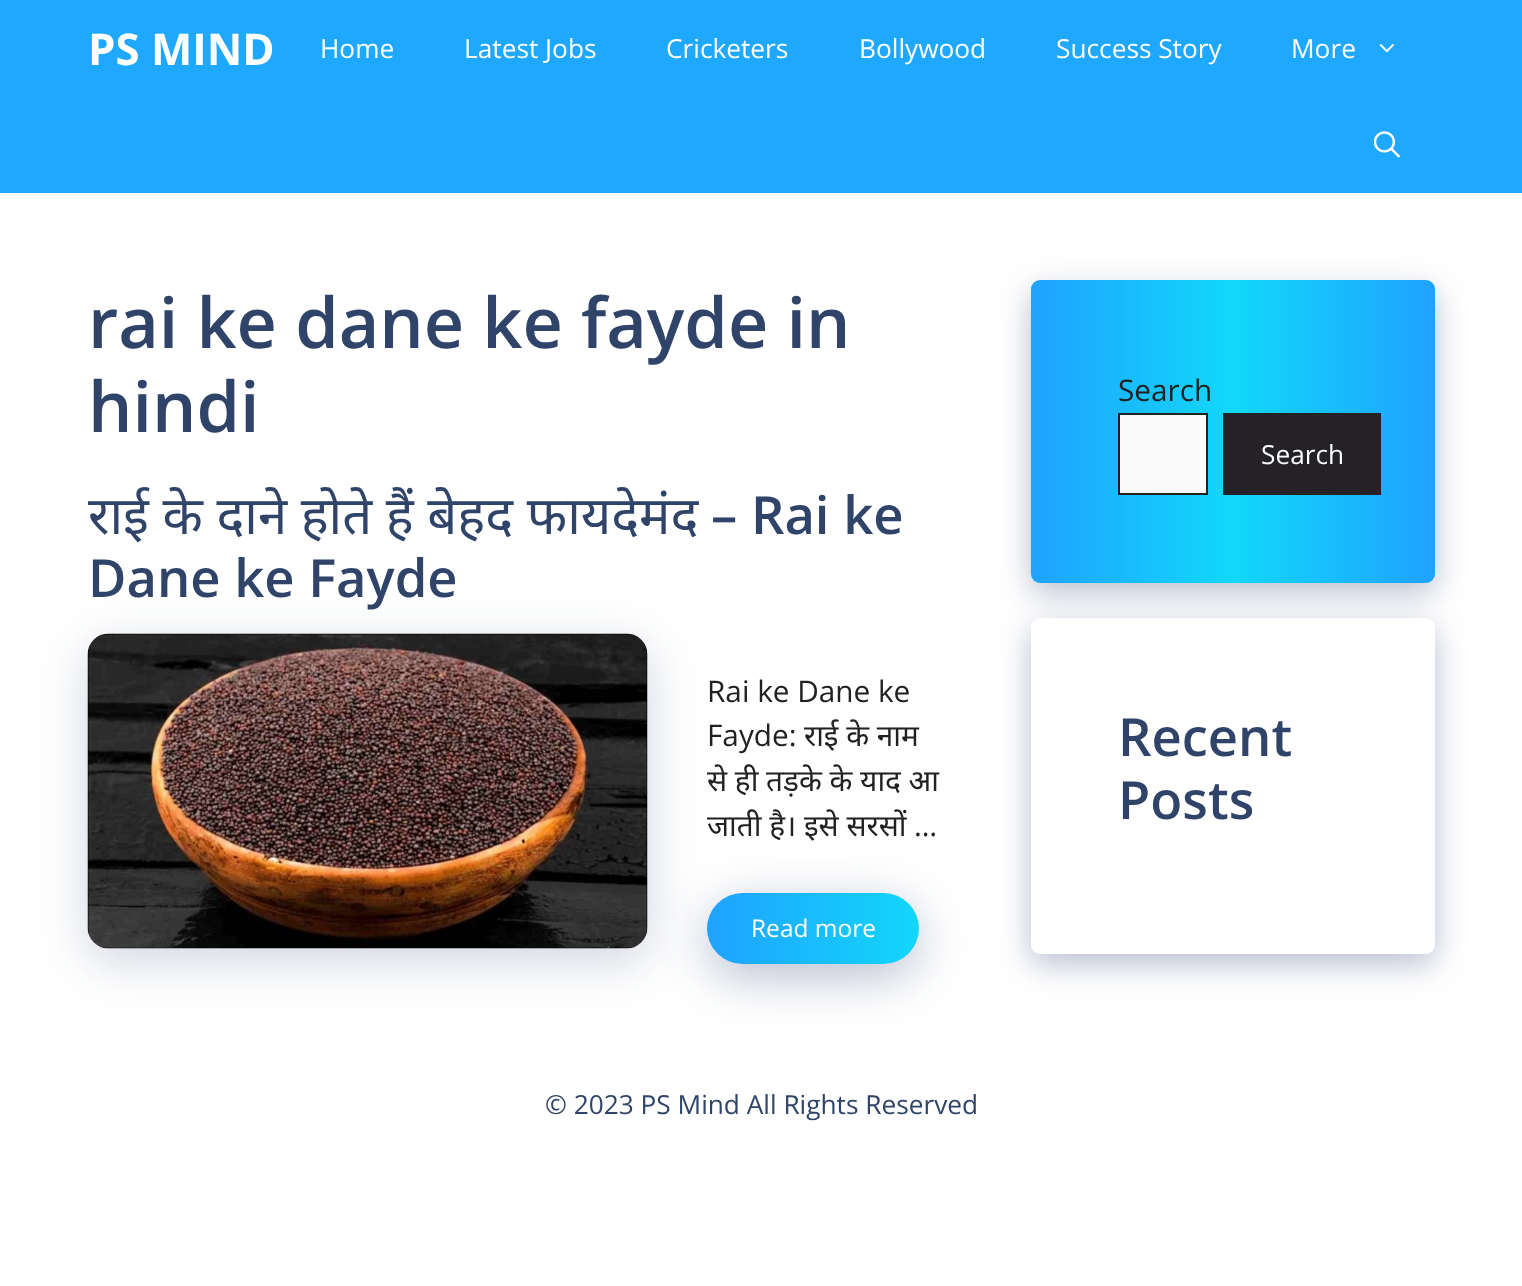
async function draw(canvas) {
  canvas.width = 1522;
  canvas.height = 1286;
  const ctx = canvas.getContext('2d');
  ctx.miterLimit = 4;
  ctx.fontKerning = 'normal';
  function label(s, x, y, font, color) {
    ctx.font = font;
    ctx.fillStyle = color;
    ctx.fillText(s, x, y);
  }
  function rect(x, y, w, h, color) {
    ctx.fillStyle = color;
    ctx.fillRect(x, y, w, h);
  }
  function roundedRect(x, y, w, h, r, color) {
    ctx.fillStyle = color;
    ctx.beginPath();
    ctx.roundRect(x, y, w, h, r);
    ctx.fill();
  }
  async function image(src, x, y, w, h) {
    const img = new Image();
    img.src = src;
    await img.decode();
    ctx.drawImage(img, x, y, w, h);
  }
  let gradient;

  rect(0, 0, 1522, 1286, '#fff');
  rect(0, 0, 1522, 193, '#1ea8ff');
  label('PS MIND', 88, 65, 'bold 43.75px Open Sans', '#fff');
  label('Home', 320, 58, '26.25px Open Sans', '#fff');
  label('Latest Jobs', 464, 58, '26.25px Open Sans', '#fff');
  label('Cricketers', 666, 58, '26.25px Open Sans', '#fff');
  label('Bollywood', 859, 58, '26.25px Open Sans', '#fff');
  label('Success Story', 1056, 58, '26.25px Open Sans', '#fff');
  label('More', 1291, 58, '26.25px Open Sans', '#fff');
  await image('assets/img1.png', 1379, 43, 15, 10);
  await image('assets/img2.png', 1374, 131, 26, 27);
  label('rai ke dane ke fayde in', 88, 348, '600 70px Open Sans', '#2f4468');
  label('hindi', 88, 432, '600 70px Open Sans', '#2f4468');
  label('राई के दाने होते हैं बेहद फायदेमंद', 88, 534, '52.5px Noto Sans', '#2f4468');
  label('– Rai ke', 711, 534, '600 52.5px Open Sans', '#2f4468');
  ctx.fillStyle = '#172b6333';
  ctx.filter = 'blur(24.5px)';
  ctx.beginPath();
  ctx.roundRect(88, 646, 560, 315, 21);
  ctx.fill();
  ctx.filter = 'none';
  label('Dane ke Fayde', 88, 597, '600 52.5px Open Sans', '#2f4468');
  await image('assets/img3.png', 87, 633, 561, 316);
  label('Rai ke Dane ke', 707, 702, '29.75px Open Sans', '#212121');
  label('Fayde:', 707, 746, '29.75px Open Sans', '#212121');
  label('राई के नाम', 804, 746, '29.75px Noto Sans', '#212121');
  label('से ही तड़के के याद आ', 707, 791, '29.75px Noto Sans', '#212121');
  label('जाती है। इसे सरसों', 707, 836, '29.75px Noto Sans', '#212121');
  label('…', 914, 836, '29.75px Open Sans', '#212121');
  ctx.fillStyle = '#172b634d';
  ctx.filter = 'blur(24.5px)';
  ctx.beginPath();
  ctx.roundRect(707, 905, 212, 72, 36);
  ctx.fill();
  ctx.filter = 'none';
  gradient = ctx.createLinearGradient(707, 928, 1131, 928);
  gradient.addColorStop(0, '#1fa2ff');
  gradient.addColorStop(0.51, '#12d8fa');
  gradient.addColorStop(1, '#1fa2ff');
  ctx.fillStyle = gradient;
  ctx.beginPath();
  ctx.roundRect(707, 893, 212, 71, 35.5);
  ctx.fill();
  label('Read more', 751, 937, '24.5px Open Sans', '#fff');
  ctx.fillStyle = '#172b634d';
  ctx.filter = 'blur(16px)';
  ctx.beginPath();
  ctx.roundRect(1031, 291, 404, 302, 9);
  ctx.fill();
  ctx.filter = 'none';
  gradient = ctx.createLinearGradient(1031, 431, 1435, 431);
  gradient.addColorStop(0, '#1fa2ff');
  gradient.addColorStop(0.5, '#12d8fa');
  gradient.addColorStop(1, '#1fa2ff');
  ctx.fillStyle = gradient;
  ctx.beginPath();
  ctx.roundRect(1031, 280, 404, 303, 9);
  ctx.fill();
  label('Search', 1118, 401, '29.75px Open Sans', '#212121');
  ctx.fillStyle = '#fafafa';
  ctx.beginPath();
  ctx.rect(1119, 414, 88, 80);
  ctx.fill();
  ctx.strokeStyle = '#212121';
  ctx.lineWidth = 2;
  ctx.stroke();
  rect(1223, 413, 158, 82, '#242226');
  label('Search', 1261, 464, '26.25px Open Sans', '#fff');
  ctx.fillStyle = '#172b634d';
  ctx.filter = 'blur(16px)';
  ctx.beginPath();
  ctx.roundRect(1031, 628, 404, 336, 9);
  ctx.fill();
  ctx.filter = 'none';
  roundedRect(1031, 618, 404, 336, 9, '#fff');
  label('Recent', 1118, 756, '600 52.5px Open Sans', '#2f4468');
  label('Posts', 1118, 819, '600 52.5px Open Sans', '#2f4468');
  label('© 2023 PS Mind All Rights Reserved', 545, 1114, '26.25px Open Sans', '#2f4468');
}

draw(document.querySelector('canvas'));
